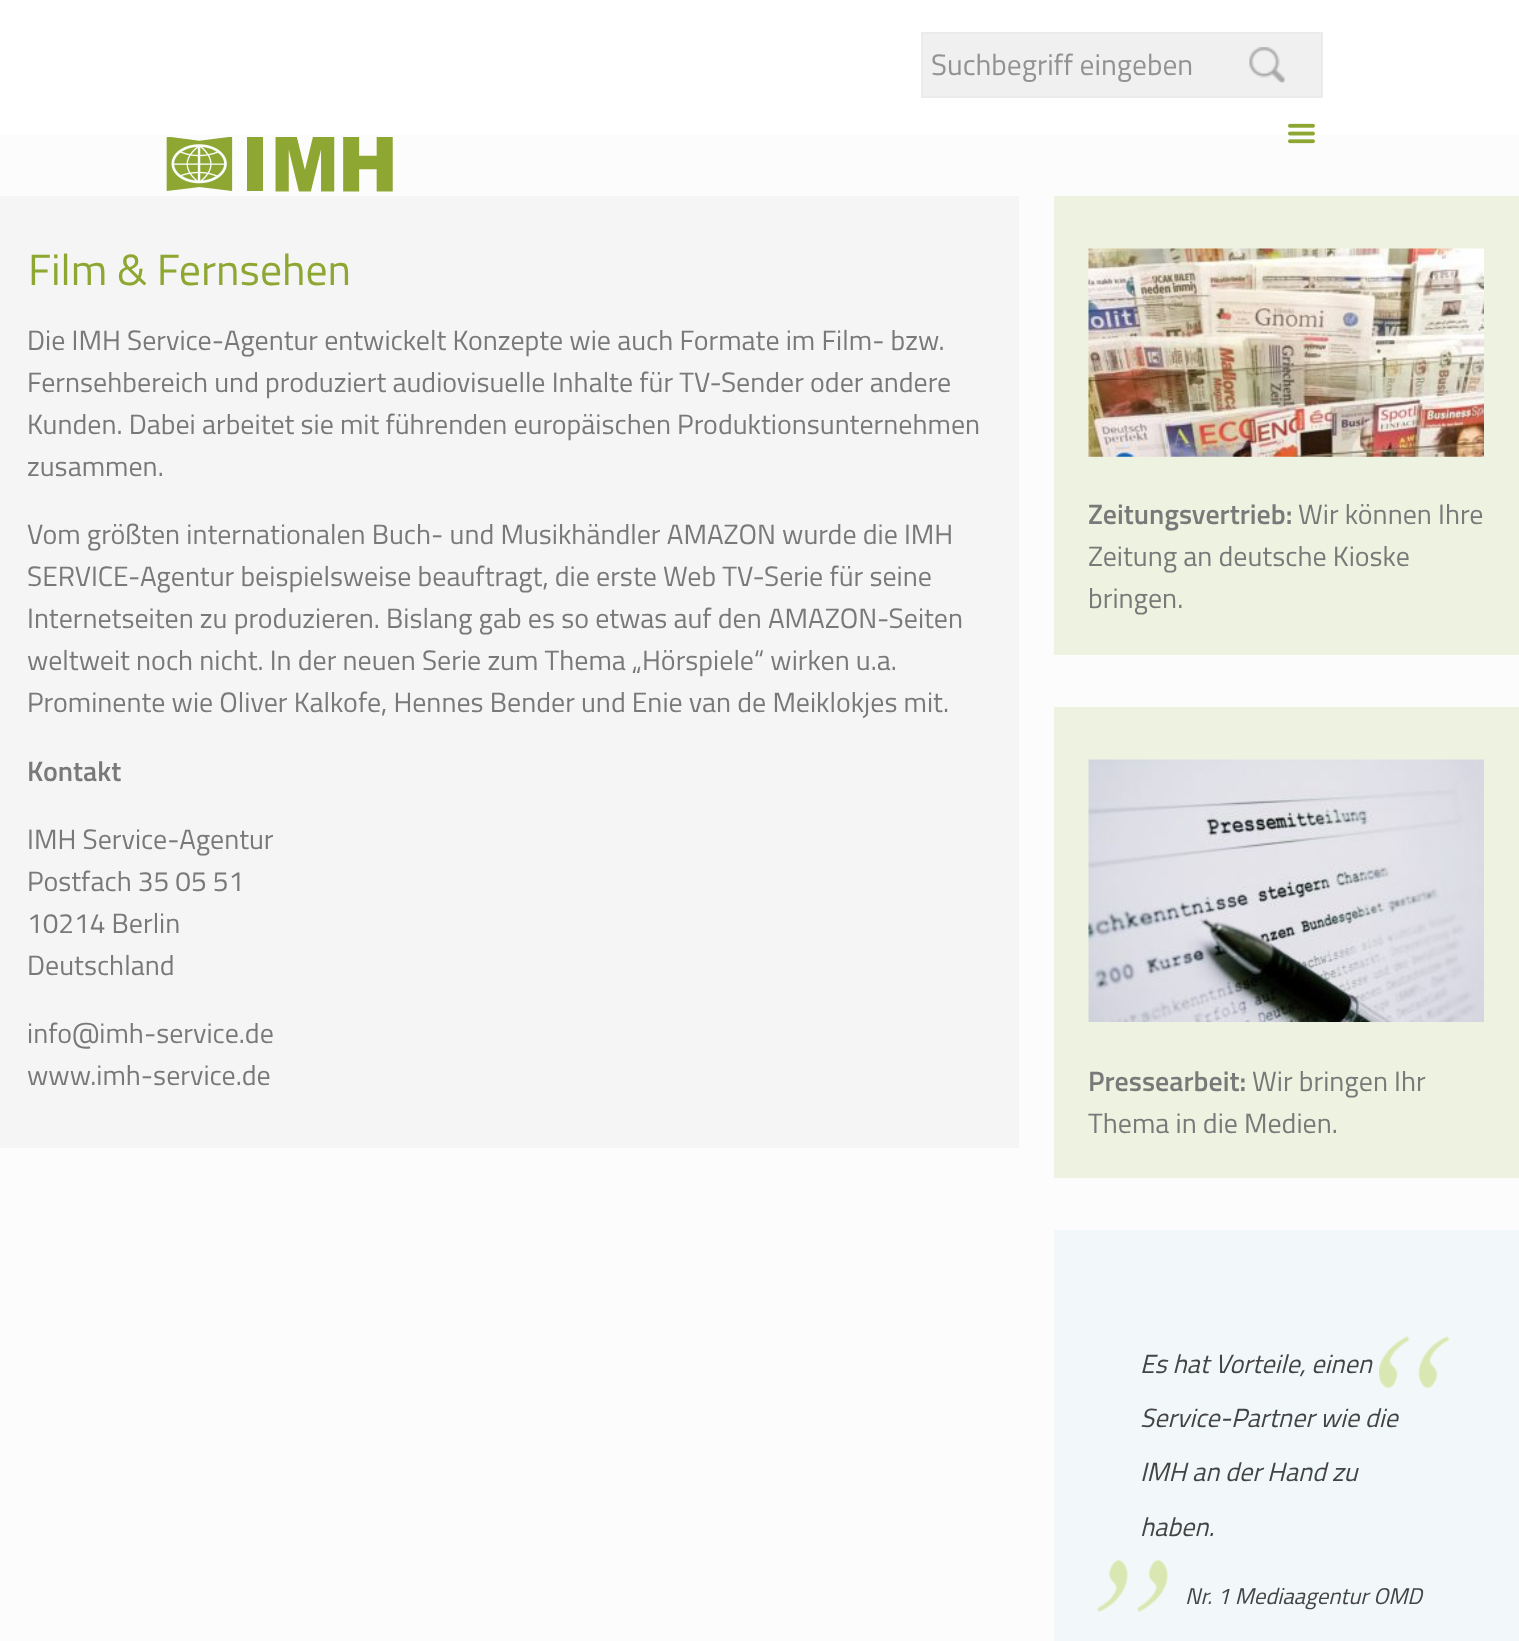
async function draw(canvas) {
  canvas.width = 1519;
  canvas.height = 1641;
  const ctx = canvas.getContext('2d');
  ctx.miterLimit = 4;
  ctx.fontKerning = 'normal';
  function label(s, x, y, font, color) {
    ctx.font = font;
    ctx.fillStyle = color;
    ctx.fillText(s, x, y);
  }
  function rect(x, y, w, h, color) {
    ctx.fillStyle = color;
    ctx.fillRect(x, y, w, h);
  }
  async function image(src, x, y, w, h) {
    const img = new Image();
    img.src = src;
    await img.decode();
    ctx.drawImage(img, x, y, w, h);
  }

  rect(0, 0, 1519, 1641, '#fcfcfc');
  rect(0, 0, 1519, 135, '#fff');
  rect(923, 34, 398, 62, '#f0f0f0');
  await image('assets/img1.png', 1249, 47, 36, 36);
  ctx.strokeStyle = '#ebebeb';
  ctx.lineWidth = 2;
  ctx.strokeRect(922, 33, 400, 64);
  label('Suchbegriff eingeben', 931, 75, '29.5px Titillium Web', '#929292');
  await image('assets/img2.png', 1288, 123, 27, 21);
  await image('assets/img3.png', 166, 137, 227, 55);
  rect(0, 196, 1019, 952, '#f5f5f5');
  label('Film & Fernsehen', 28, 285, '43.75px Titillium Web', '#8da732');
  label('Die IMH Service-Agentur entwickelt Konzepte wie auch Formate im Film- bzw.', 27, 350, '28px Titillium Web', '#797979');
  label('Fernsehbereich und produziert audiovisuelle Inhalte für TV-Sender oder andere', 27, 392, '28px Titillium Web', '#797979');
  label('Kunden. Dabei arbeitet sie mit führenden europäischen Produktionsunternehmen', 27, 434, '28px Titillium Web', '#797979');
  label('zusammen.', 27, 476, '28px Titillium Web', '#797979');
  label('Vom größten internationalen Buch- und Musikhändler AMAZON wurde die IMH', 27, 544, '28px Titillium Web', '#797979');
  label('SERVICE-Agentur beispielsweise beauftragt, die erste Web TV-Serie für seine', 27, 586, '28px Titillium Web', '#797979');
  label('Internetseiten zu produzieren. Bislang gab es so etwas auf den AMAZON-Seiten', 27, 628, '28px Titillium Web', '#797979');
  label('weltweit noch nicht. In der neuen Serie zum Thema „Hörspiele“ wirken u.a.', 27, 670, '28px Titillium Web', '#797979');
  label('Prominente wie Oliver Kalkofe, Hennes Bender und Enie van de Meiklokjes mit.', 27, 712, '28px Titillium Web', '#797979');
  label('Kontakt', 27, 781, '600 28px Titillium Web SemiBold', '#797979');
  label('IMH Service-Agentur', 27, 849, '28px Titillium Web', '#797979');
  label('Postfach 35 05 51', 27, 891, '28px Titillium Web', '#797979');
  label('10214 Berlin', 27, 933, '28px Titillium Web', '#797979');
  label('Deutschland', 27, 975, '28px Titillium Web', '#797979');
  label('info@imh-service.de', 27, 1043, '28px Titillium Web', '#797979');
  label('www.imh-service.de', 27, 1085, '28px Titillium Web', '#797979');
  rect(1054, 196, 465, 459, '#eef2e0');
  await image('assets/img4.png', 1088, 248, 396, 209);
  label('Zeitungsvertrieb:', 1088, 524, '600 28px Titillium Web SemiBold', '#797979');
  label('Wir können Ihre', 1298, 524, '28px Titillium Web', '#797979');
  label('Zeitung an deutsche Kioske', 1088, 566, '28px Titillium Web', '#797979');
  label('bringen.', 1088, 608, '28px Titillium Web', '#797979');
  rect(1054, 707, 465, 471, '#eef2e0');
  await image('assets/img5.png', 1088, 759, 396, 263);
  label('Pressearbeit:', 1088, 1091, '600 28px Titillium Web SemiBold', '#797979');
  label('Wir bringen Ihr', 1252, 1091, '28px Titillium Web', '#797979');
  label('Thema in die Medien.', 1088, 1133, '28px Titillium Web', '#797979');
  rect(1054, 1230, 465, 411, '#f2f8f9');
  label('Es hat Vorteile, einen', 1140, 1373, 'italic 26.25px Titillium Web', '#444');
  label('Service-Partner wie die', 1140, 1427, 'italic 26.25px Titillium Web', '#444');
  label('IMH an der Hand zu', 1140, 1481, 'italic 26.25px Titillium Web', '#444');
  label('haben.', 1140, 1536, 'italic 26.25px Titillium Web', '#444');
  await image('assets/img6.png', 1379, 1336, 70, 52);
  await image('assets/img7.png', 1097, 1560, 71, 52);
  label('Nr. 1 Mediaagentur OMD', 1185, 1604, 'italic 22.75px Titillium Web', '#444');
}

draw(document.querySelector('canvas'));
